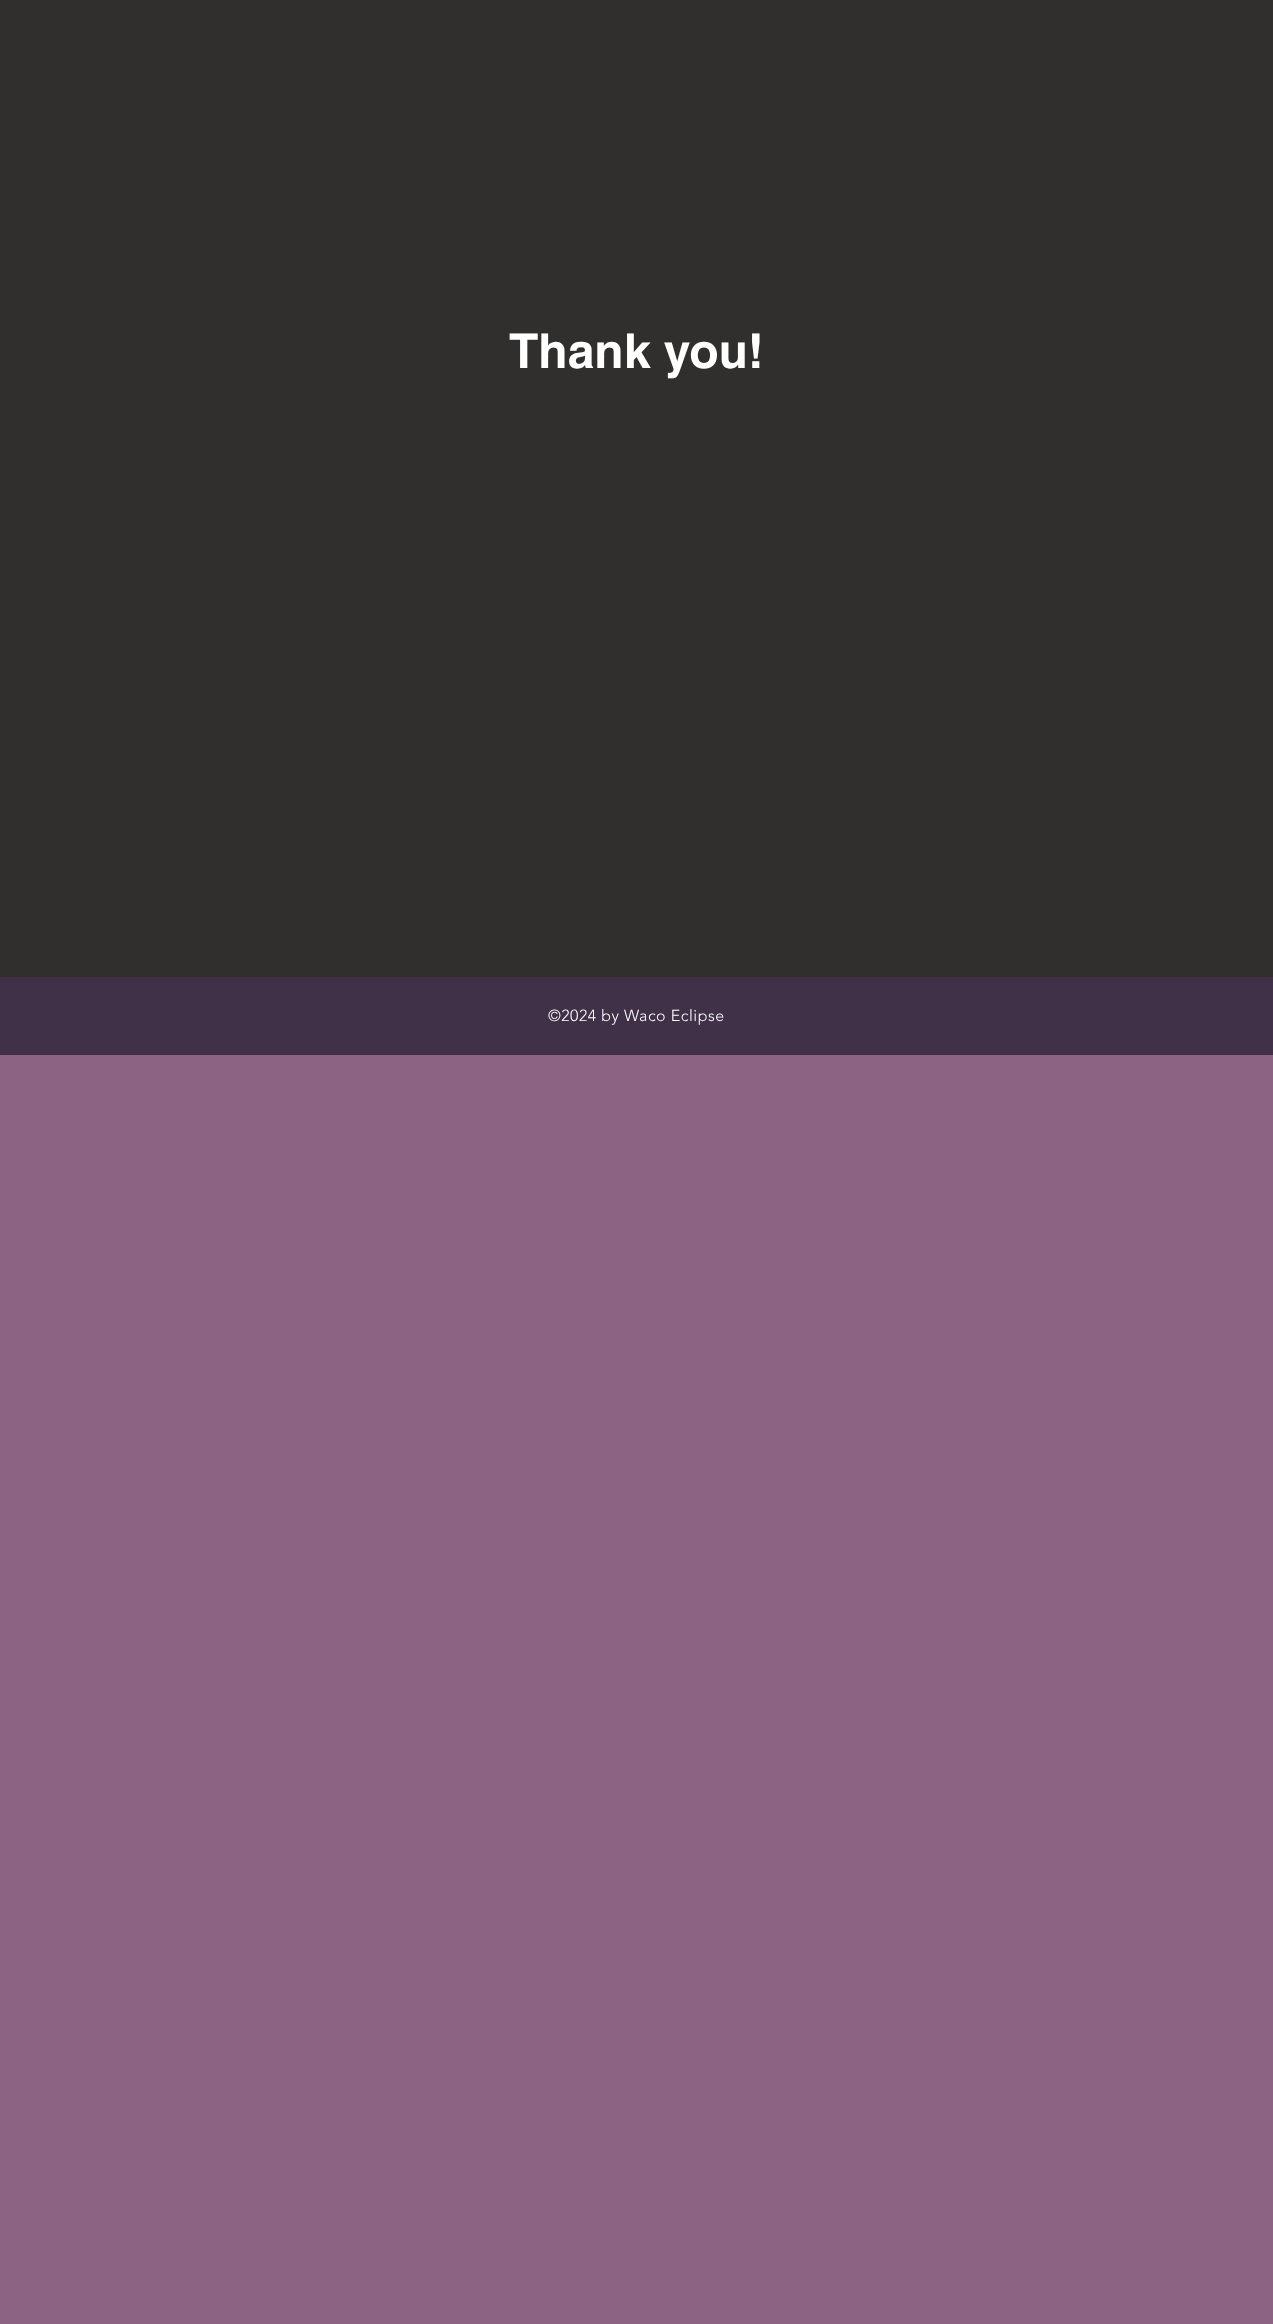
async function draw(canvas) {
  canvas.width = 1273;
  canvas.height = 2324;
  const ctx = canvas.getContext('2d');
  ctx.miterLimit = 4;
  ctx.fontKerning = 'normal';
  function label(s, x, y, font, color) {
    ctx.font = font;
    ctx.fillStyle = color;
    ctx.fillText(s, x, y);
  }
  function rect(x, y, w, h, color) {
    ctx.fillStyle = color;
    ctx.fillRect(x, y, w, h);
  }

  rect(0, 0, 1273, 2324, '#8d6384');
  rect(0, 0, 1273, 977, '#312f2e');
  label('Thank you!', 509, 368, 'bold 48px helvetica', '#fff');
  rect(0, 977, 1273, 78, '#403048');
  ctx.letterSpacing = '0.5px';
  label('©2024 by Waco Eclipse', 548, 1021, '300 16px "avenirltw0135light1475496"', '#fff');
}

draw(document.querySelector('canvas'));
